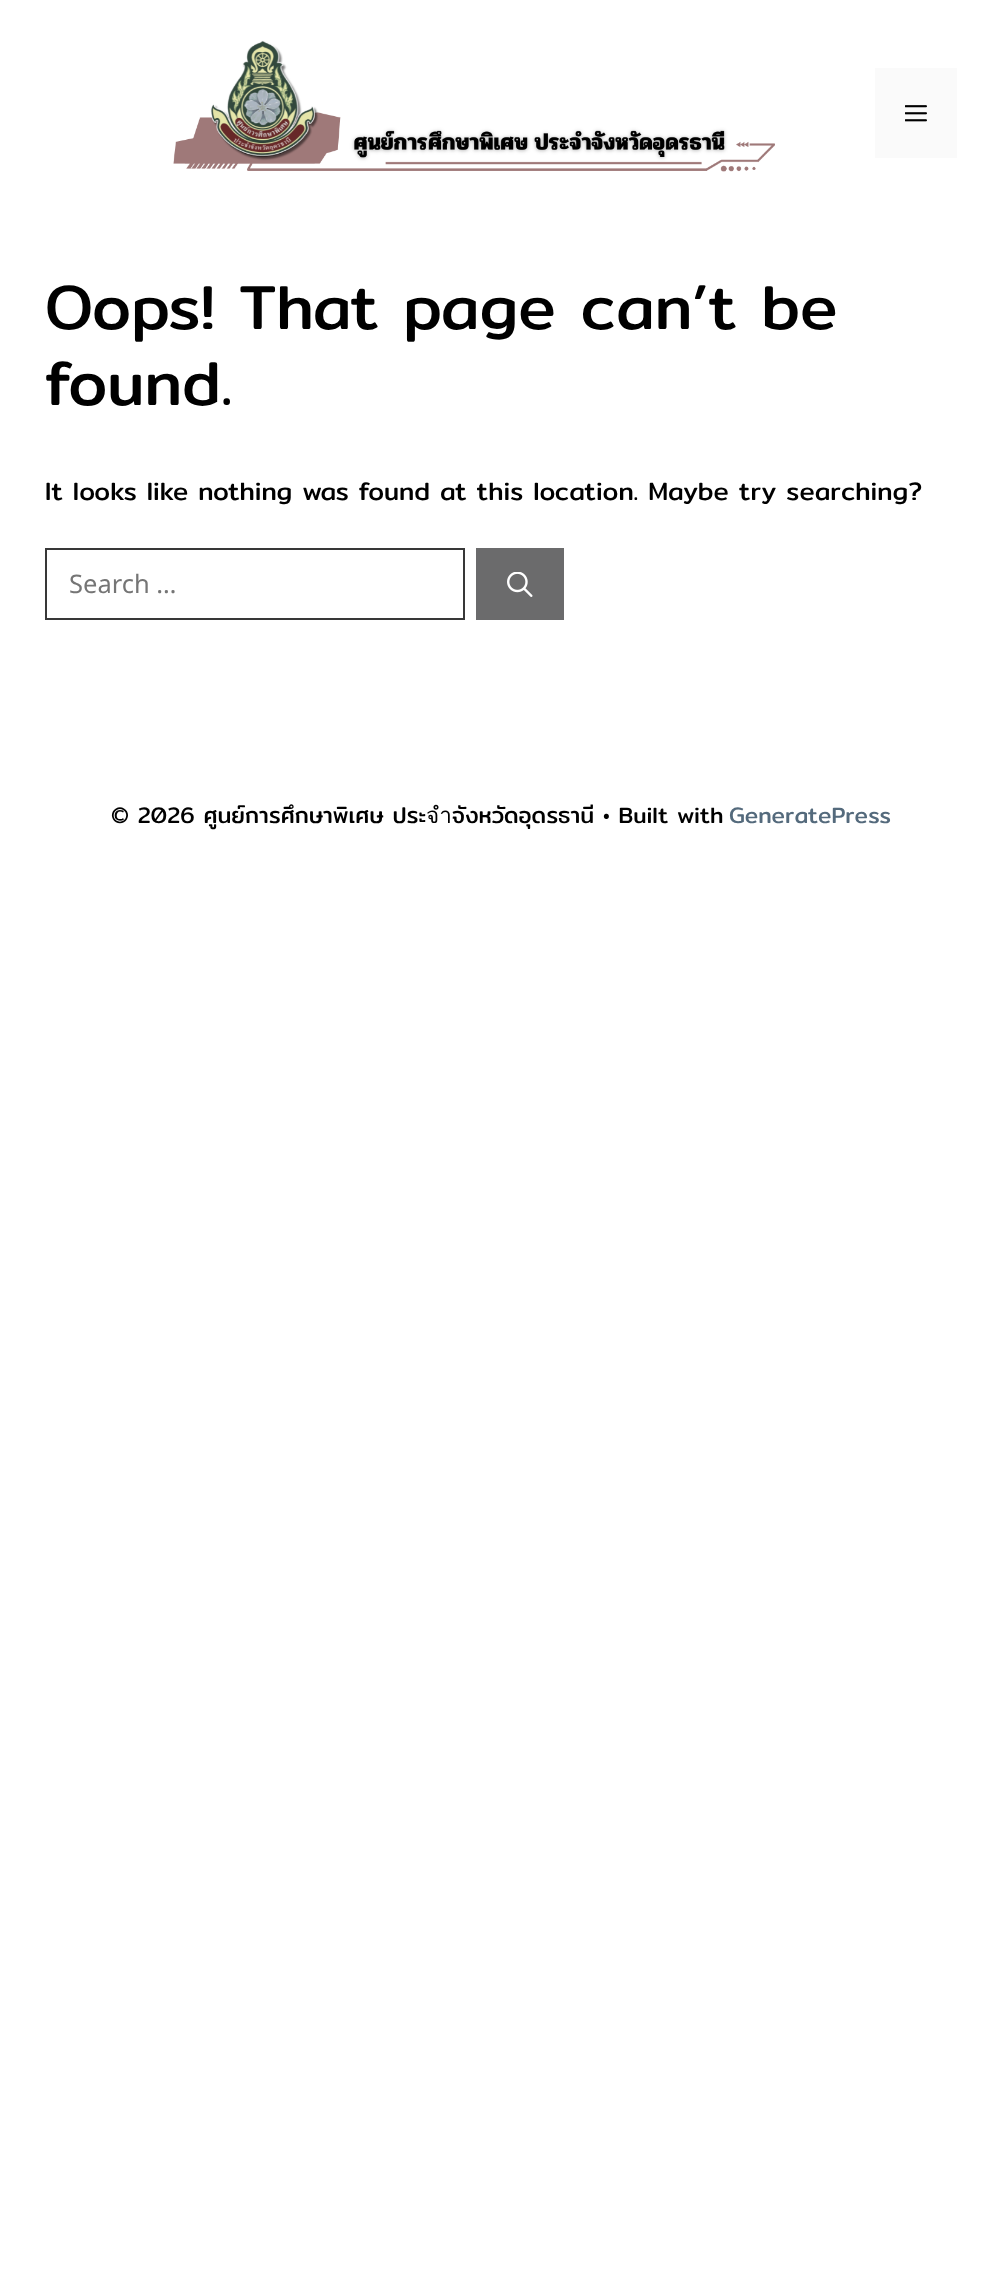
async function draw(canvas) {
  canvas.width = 1001;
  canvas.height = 2296;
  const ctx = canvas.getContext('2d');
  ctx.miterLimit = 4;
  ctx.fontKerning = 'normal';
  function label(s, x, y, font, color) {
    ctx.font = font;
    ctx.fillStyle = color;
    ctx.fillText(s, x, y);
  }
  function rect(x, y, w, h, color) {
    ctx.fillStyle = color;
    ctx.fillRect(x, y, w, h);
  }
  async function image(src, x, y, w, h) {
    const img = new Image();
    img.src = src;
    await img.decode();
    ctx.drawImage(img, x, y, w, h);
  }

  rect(0, 0, 1001, 2296, '#fff');
  await image('assets/img1.png', 173, 40, 602, 132);
  rect(875, 68, 82, 90, '#fafafa');
  await image('assets/img2.png', 905, 105, 22, 17);
  label('Oops! That page can’t be', 45, 329, '63px Mitr', '#000');
  label('found.', 45, 405, '63px Mitr', '#000');
  label('It looks like nothing was found at this location. Maybe try searching?', 45, 500, '25.5px Mitr', '#000');
  ctx.strokeStyle = '#383838';
  ctx.lineWidth = 2;
  ctx.strokeRect(46, 549, 418, 70);
  label('Search …', 69, 593, '25.5px Noto Sans', '#757575');
  rect(476, 548, 88, 72, '#6b6b6c');
  await image('assets/img3.png', 507, 572, 26, 25);
  label('© 2026 ศูนย์การศึกษาพิเศษ ประจำจังหวัดอุดรธานี • Built with', 111, 823, '22.5px Mitr', '#000');
  label('GeneratePress', 729, 823, '22.5px Mitr', '#546a7c');
}

draw(document.querySelector('canvas'));
